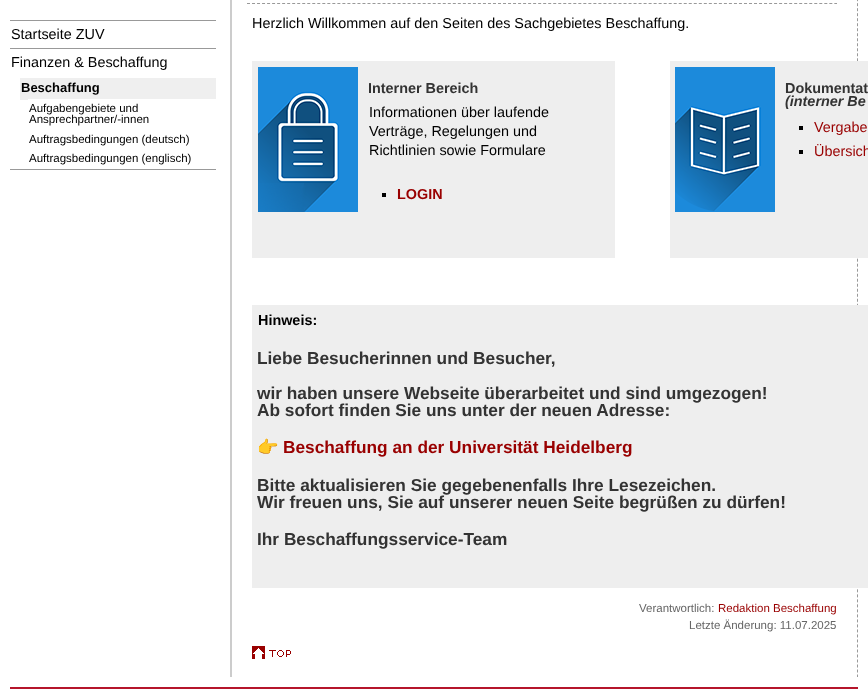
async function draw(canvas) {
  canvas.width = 868;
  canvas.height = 689;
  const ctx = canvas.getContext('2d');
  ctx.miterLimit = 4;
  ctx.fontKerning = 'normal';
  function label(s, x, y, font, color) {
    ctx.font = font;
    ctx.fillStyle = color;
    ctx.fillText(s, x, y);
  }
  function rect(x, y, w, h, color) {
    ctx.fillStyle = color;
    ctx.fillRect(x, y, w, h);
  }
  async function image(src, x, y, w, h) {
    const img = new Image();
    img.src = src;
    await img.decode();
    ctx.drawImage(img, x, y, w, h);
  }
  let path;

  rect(0, 0, 868, 689, '#fff');
  rect(10, 20, 206, 1, '#999');
  label('Startseite ZUV', 11, 39, '14.4px Liberation Sans', '#000');
  rect(10, 48, 206, 1, '#999');
  label('Finanzen & Beschaffung', 11, 67, '14.4px Liberation Sans', '#000');
  rect(20, 78, 196, 22, '#efefef');
  label('Beschaffung', 21, 92, 'bold 13px Liberation Sans', '#000');
  rect(28, 99, 188, 1, '#fff');
  label('Aufgabengebiete und', 29, 112, '11.5px Liberation Sans', '#000');
  label('Ansprechpartner/-innen', 29, 123, '11.5px Liberation Sans', '#000');
  label('Auftragsbedingungen (deutsch)', 29, 143, '11.5px Liberation Sans', '#000');
  label('Auftragsbedingungen (englisch)', 29, 162, '11.5px Liberation Sans', '#000');
  rect(10, 169, 206, 1, '#999');
  path = new Path2D('M857.5-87V677');
  ctx.strokeStyle = '#999';
  ctx.setLineDash([3, 2.01]);
  ctx.stroke(path);
  rect(230, 0, 2, 677, '#ccc');
  path = new Path2D('M247 3.5H837');
  ctx.setLineDash([3, 2.02]);
  ctx.stroke(path);
  label('Herzlich Willkommen auf den Seiten des Sachgebietes Beschaffung.', 252, 28, '14.4px Liberation Sans', '#000');
  rect(253, 62, 361, 195, '#eee');
  rect(252, 61, 363, 1, '#eee');
  rect(614, 61, 1, 197, '#eee');
  rect(252, 257, 363, 1, '#eee');
  rect(252, 61, 1, 197, '#eee');
  await image('assets/img1.png', 258, 67, 100, 145);
  rect(669, 61, 199, 1, '#eee');
  rect(669, 61, 1, 1, '#fff');
  rect(669, 257, 199, 1, '#eee');
  rect(669, 257, 1, 1, '#fff');
  rect(670, 62, 198, 195, '#eee');
  await image('assets/img2.png', 675, 67, 100, 145);
  label('Interner Bereich', 368, 93, 'bold 14.4px Liberation Sans', '#333');
  label('Informationen über laufende', 369, 117, '14.4px Liberation Sans', '#000');
  label('Verträge, Regelungen und', 369, 136, '14.4px Liberation Sans', '#000');
  label('Richtlinien sowie Formulare', 369, 155, '14.4px Liberation Sans', '#000');
  rect(382, 193, 4, 4, '#000');
  label('LOGIN', 397, 199, 'bold 14.4px Liberation Sans', '#900');
  label('Dokumentat', 785, 93, 'bold 14.4px Liberation Sans', '#333');
  label('(interner Be', 785, 106, 'italic bold 14.4px Liberation Sans', '#333');
  rect(799, 126, 4, 4, '#000');
  label('Vergabe', 814, 132, '14.4px Liberation Sans', '#900');
  rect(799, 150, 4, 4, '#000');
  label('Übersich', 814, 156, '14.4px Liberation Sans', '#900');
  rect(253, 306, 615, 281, '#eee');
  rect(252, 305, 616, 1, '#eee');
  rect(252, 587, 616, 1, '#eee');
  rect(252, 305, 1, 283, '#eee');
  label('Hinweis:', 258, 325, 'bold 14.4px Liberation Sans', '#000');
  label('Liebe Besucherinnen und Besucher,', 257, 364, 'bold 17.3px Liberation Sans', '#333');
  label('wir haben unsere Webseite überarbeitet und sind umgezogen!', 257, 399, 'bold 17.3px Liberation Sans', '#333');
  label('Ab sofort finden Sie uns unter der neuen Adresse:', 257, 416, 'bold 17.3px Liberation Sans', '#333');
  label('👉', 257, 453, 'bold 17.3px Noto Color Emoji', '#333');
  label('Beschaffung an der Universität Heidelberg', 283, 453, 'bold 17.3px Liberation Sans', '#900');
  label('Bitte aktualisieren Sie gegebenenfalls Ihre Lesezeichen.', 257, 491, 'bold 17.3px Liberation Sans', '#333');
  label('Wir freuen uns, Sie auf unserer neuen Seite begrüßen zu dürfen!', 257, 508, 'bold 17.3px Liberation Sans', '#333');
  label('Ihr Beschaffungsservice-Team', 257, 545, 'bold 17.3px Liberation Sans', '#333');
  label('Verantwortlich:', 639, 612, '11.5px Liberation Sans', '#666');
  label('Redaktion Beschaffung', 718, 612, '11.5px Liberation Sans', '#900');
  label('Letzte Änderung: 11.07.2025', 689, 629, '11.5px Liberation Sans', '#666');
  await image('assets/img3.png', 252, 646, 39, 13);
  rect(10, 687, 848, 2, '#b5152b');
}

draw(document.querySelector('canvas'));
